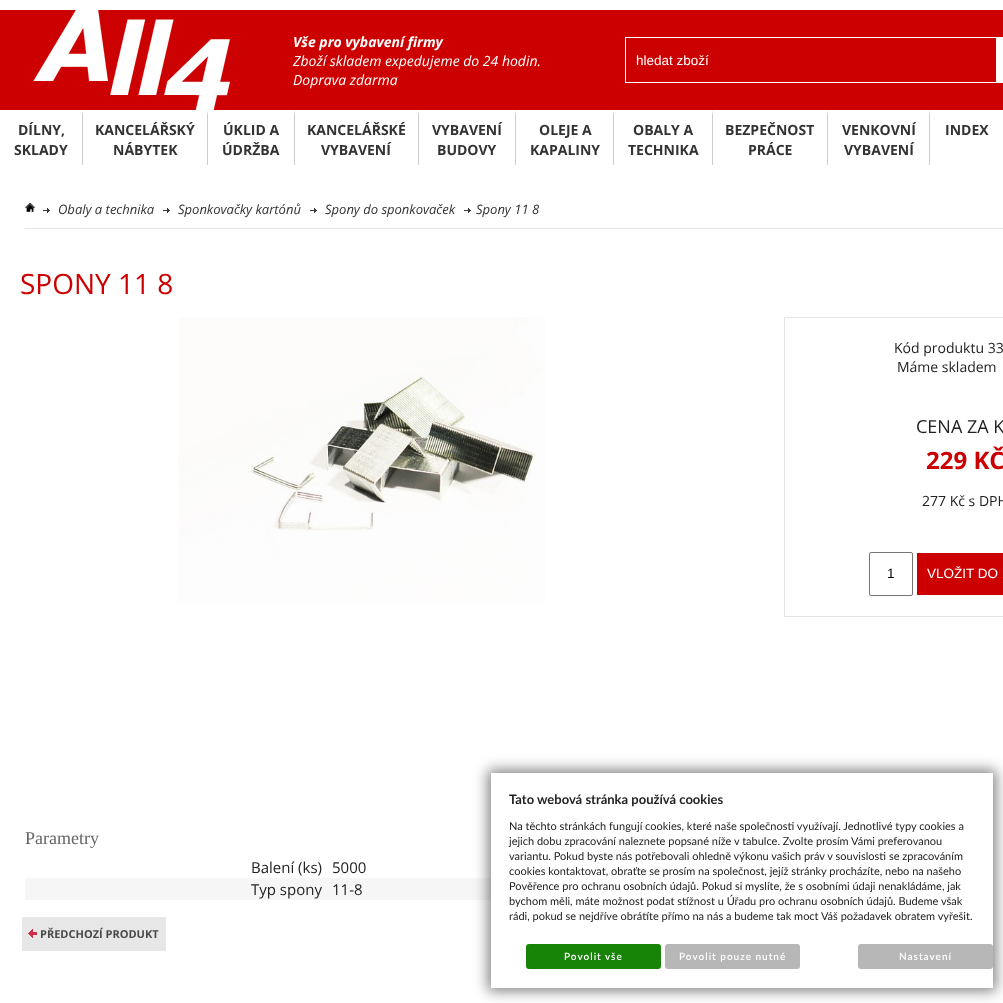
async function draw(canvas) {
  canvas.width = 1003;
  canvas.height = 1003;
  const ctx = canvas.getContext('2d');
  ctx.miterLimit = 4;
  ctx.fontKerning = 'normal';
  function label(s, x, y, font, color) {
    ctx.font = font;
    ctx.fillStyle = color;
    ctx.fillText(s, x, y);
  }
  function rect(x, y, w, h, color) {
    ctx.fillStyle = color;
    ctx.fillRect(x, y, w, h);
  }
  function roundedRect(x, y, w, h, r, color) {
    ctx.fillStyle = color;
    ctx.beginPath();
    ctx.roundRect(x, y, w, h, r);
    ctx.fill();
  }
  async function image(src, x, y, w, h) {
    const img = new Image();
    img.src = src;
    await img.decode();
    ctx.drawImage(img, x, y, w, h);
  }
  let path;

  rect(0, 0, 1003, 1003, '#fff');
  rect(0, 10, 1003, 100, '#cc0001');
  await image('assets/img1.png', 27, 10, 207, 100);
  label('Vše pro vybavení firmy', 293, 47, 'italic bold 14px Open Sans', '#fff');
  label('Zboží skladem expedujeme do 24 hodin.', 293, 66, 'italic 14px Open Sans', '#fff');
  label('Doprava zdarma', 293, 85, 'italic 14px Open Sans', '#fff');
  ctx.strokeStyle = '#fff';
  ctx.strokeRect(625.5, 37.5, 371, 45);
  label('hledat zboží', 636, 65, '13.5px Liberation Sans', '#fff');
  rect(997, 37, 6, 46, '#fff');
  label('DÍLNY,', 18, 135, 'bold 14px Open Sans', '#333');
  label('SKLADY', 14, 155, 'bold 14px Open Sans', '#333');
  ctx.fillStyle = '#cdcdcd';
  path = new Path2D('M82 165V110L83 115V165Z');
  ctx.fill(path);
  label('KANCELÁŘSKÝ', 95, 135, 'bold 14px Open Sans', '#333');
  label('NÁBYTEK', 113, 155, 'bold 14px Open Sans', '#333');
  ctx.fillStyle = '#cdcdcd';
  path = new Path2D('M207 165V110L208 115V165Z');
  ctx.fill(path);
  label('ÚKLID A', 223, 135, 'bold 14px Open Sans', '#333');
  label('ÚDRŽBA', 222, 155, 'bold 14px Open Sans', '#333');
  ctx.fillStyle = '#cdcdcd';
  path = new Path2D('M294 165V110L295 115V165Z');
  ctx.fill(path);
  label('KANCELÁŘSKÉ', 307, 135, 'bold 14px Open Sans', '#333');
  label('VYBAVENÍ', 321, 155, 'bold 14px Open Sans', '#333');
  ctx.fillStyle = '#cdcdcd';
  path = new Path2D('M418 165V110L419 115V165Z');
  ctx.fill(path);
  label('VYBAVENÍ', 432, 135, 'bold 14px Open Sans', '#333');
  label('BUDOVY', 437, 155, 'bold 14px Open Sans', '#333');
  ctx.fillStyle = '#cdcdcd';
  path = new Path2D('M515 165V110L516 115V165Z');
  ctx.fill(path);
  label('OLEJE A', 539, 135, 'bold 14px Open Sans', '#333');
  label('KAPALINY', 530, 155, 'bold 14px Open Sans', '#333');
  ctx.fillStyle = '#cdcdcd';
  path = new Path2D('M613 165V110L614 115V165Z');
  ctx.fill(path);
  label('OBALY A', 633, 135, 'bold 14px Open Sans', '#333');
  label('TECHNIKA', 628, 155, 'bold 14px Open Sans', '#333');
  ctx.fillStyle = '#cdcdcd';
  path = new Path2D('M712 165V110L713 115V165Z');
  ctx.fill(path);
  label('BEZPEČNOST', 725, 135, 'bold 14px Open Sans', '#333');
  label('PRÁCE', 748, 155, 'bold 14px Open Sans', '#333');
  ctx.fillStyle = '#cdcdcd';
  path = new Path2D('M827 165V110L828 115V165Z');
  ctx.fill(path);
  label('VENKOVNÍ', 842, 135, 'bold 14px Open Sans', '#333');
  label('VYBAVENÍ', 844, 155, 'bold 14px Open Sans', '#333');
  ctx.fillStyle = '#cdcdcd';
  path = new Path2D('M929 165V110L930 115V165Z');
  ctx.fill(path);
  label('INDEX', 945, 135, 'bold 14px Open Sans', '#333');
  rect(25, 228, 978, 1, '#e5e5e5');
  await image('assets/img2.png', 25, 203, 10, 9);
  await image('assets/img3.png', 43, 208, 7, 5);
  label('Obaly a technika', 58, 214, 'italic 13px Open Sans', '#333');
  await image('assets/img3.png', 163, 208, 7, 5);
  label('Sponkovačky kartónů', 178, 214, 'italic 13px Open Sans', '#333');
  await image('assets/img3.png', 310, 208, 7, 5);
  label('Spony do sponkovaček', 325, 214, 'italic 13px Open Sans', '#333');
  await image('assets/img3.png', 464, 208, 7, 5);
  label('Spony 11 8', 476, 214, 'italic 13px Open Sans', '#333');
  label('SPONY 11 8', 20, 294, '28px Open Sans', '#cc0001');
  await image('assets/img4.png', 178, 317, 367, 286);
  ctx.strokeStyle = '#e5e5e5';
  ctx.strokeRect(784.5, 317.5, 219, 299);
  label('Kód produktu 33', 894, 353, '14px Open Sans', '#222');
  label('Máme skladem', 897, 372, '14px Open Sans', '#222');
  label('CENA ZA K', 916, 433, '18px Open Sans', '#222');
  label('229 KČ', 926, 469, 'bold 24px Open Sans', '#cc0001');
  label('277 Kč s DPH', 922, 506, '14px Open Sans', '#222');
  ctx.beginPath();
  ctx.roundRect(869.5, 552.5, 43, 43, 1.5);
  ctx.strokeStyle = '#767676';
  ctx.stroke();
  label('1', 887, 578, '13.5px Liberation Sans', '#000');
  rect(917, 553, 86, 42, '#cc0001');
  label('VLOŽIT DO', 927, 578, '13.5px Liberation Sans', '#fff');
  label('Parametry', 25, 844, '18px Liberation Serif', '#666');
  label('Balení (ks)', 251, 873, '15px Open Sans', '#222');
  label('5000', 332, 873, '15px Open Sans', '#222');
  rect(25, 878, 466, 22, '#f6f6f6');
  label('Typ spony', 251, 895, '15px Open Sans', '#222');
  label('11-8', 332, 895, '15px Open Sans', '#222');
  rect(22, 917, 144, 34, '#e7e7e7');
  await image('assets/img5.png', 28, 929, 9, 9);
  label('PŘEDCHOZÍ PRODUKT', 40, 938, 'bold 11px Open Sans', '#494949');
  ctx.fillStyle = '#00000080';
  ctx.filter = 'blur(7px)';
  ctx.beginPath();
  ctx.rect(488, 770, 508, 221);
  ctx.fill();
  ctx.filter = 'none';
  rect(491, 773, 502, 215, '#fff');
  label('Tato webová stránka používá cookies', 509, 804, 'bold 13px Lato', '#222');
  label('Na těchto stránkách fungují cookies, které naše společnosti využívají. Jednotlivé typy cookies a', 509, 830, '11px Lato', '#222');
  label('jejich dobu zpracování naleznete popsané níže v tabulce. Zvolte prosím Vámi preferovanou', 509, 845, '11px Lato', '#222');
  label('variantu. Pokud byste nás potřebovali ohledně výkonu vašich práv v souvislosti se zpracováním', 509, 860, '11px Lato', '#222');
  label('cookies kontaktovat, obraťte se prosím na společnost, jejíž stránky procházíte, nebo na našeho', 509, 875, '11px Lato', '#222');
  label('Pověřence pro ochranu osobních údajů. Pokud si myslíte, že s osobními údaji nenakládáme, jak', 509, 890, '11px Lato', '#222');
  label('bychom měli, máte možnost podat stížnost u Úřadu pro ochranu osobních údajů. Budeme však', 509, 905, '11px Lato', '#222');
  label('rádi, pokud se nejdříve obrátíte přímo na nás a budeme tak moct Váš požadavek obratem vyřešit.', 509, 920, '11px Lato', '#222');
  roundedRect(526, 944, 135, 25, 3, '#178408');
  ctx.letterSpacing = '1px';
  label('Povolit vše', 564, 960, '600 10px Lato', '#fff');
  roundedRect(665, 944, 135, 25, 3, '#b7b7b7');
  label('Povolit pouze nutné', 679, 960, '600 10px Lato', '#fff');
  roundedRect(858, 944, 135, 25, 3, '#b7b7b7');
  label('Nastavení', 899, 960, '600 10px Lato', '#fff');
}

draw(document.querySelector('canvas'));
